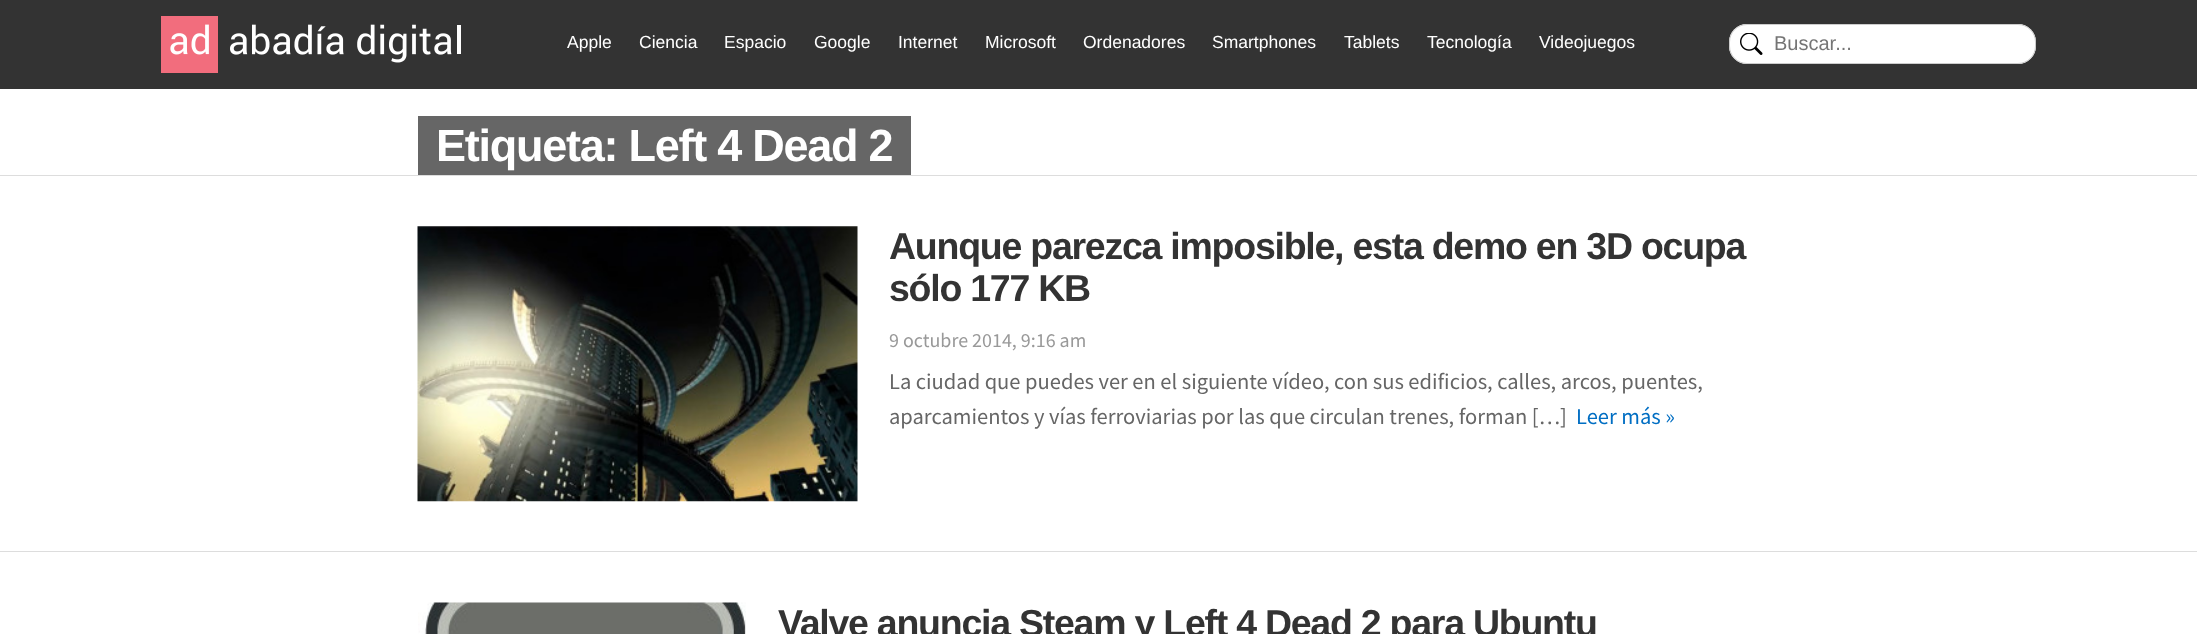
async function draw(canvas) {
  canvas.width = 2197;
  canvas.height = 634;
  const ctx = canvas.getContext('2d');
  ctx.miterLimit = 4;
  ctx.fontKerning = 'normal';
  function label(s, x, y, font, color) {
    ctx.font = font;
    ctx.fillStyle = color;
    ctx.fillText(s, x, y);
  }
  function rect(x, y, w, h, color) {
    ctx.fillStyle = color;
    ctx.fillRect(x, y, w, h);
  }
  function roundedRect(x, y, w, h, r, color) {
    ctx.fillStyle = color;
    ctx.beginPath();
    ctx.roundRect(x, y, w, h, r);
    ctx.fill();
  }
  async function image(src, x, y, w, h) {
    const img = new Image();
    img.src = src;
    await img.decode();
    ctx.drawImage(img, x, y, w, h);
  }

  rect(0, 0, 2197, 634, '#fff');
  rect(0, 0, 2197, 89, '#333');
  await image('assets/img1.png', 161, 16, 300, 57);
  label('Apple', 567, 48, '17.5px Liberation Sans', '#fff');
  label('Ciencia', 639, 48, '17.5px Liberation Sans', '#fff');
  label('Espacio', 724, 48, '17.5px Liberation Sans', '#fff');
  label('Google', 814, 48, '17.5px Liberation Sans', '#fff');
  label('Internet', 898, 48, '17.5px Liberation Sans', '#fff');
  label('Microsoft', 985, 48, '17.5px Liberation Sans', '#fff');
  label('Ordenadores', 1083, 48, '17.5px Liberation Sans', '#fff');
  label('Smartphones', 1212, 48, '17.5px Liberation Sans', '#fff');
  label('Tablets', 1344, 48, '17.5px Liberation Sans', '#fff');
  label('Tecnología', 1427, 48, '17.5px Liberation Sans', '#fff');
  label('Videojuegos', 1539, 48, '17.5px Liberation Sans', '#fff');
  roundedRect(1729, 24, 307, 40, 18, '#fff');
  await image('assets/img2.png', 1740, 33, 23, 22);
  ctx.beginPath();
  ctx.roundRect(1729.5, 24.5, 306, 39, 17.5);
  ctx.strokeStyle = '#ccc';
  ctx.stroke();
  label('Buscar...', 1774, 50, '20px Liberation Sans', '#757575');
  rect(418, 116, 493, 59, '#666');
  ctx.letterSpacing = '-1.25px';
  label('Etiqueta: Left 4 Dead 2', 436, 161, 'bold 45px Liberation Sans', '#fff');
  rect(0, 175, 2197, 1, '#ddd');
  await image('assets/img3.png', 417, 226, 441, 276);
  label('Aunque parezca imposible, esta demo en 3D ocupa', 889, 259, 'bold 37.5px Liberation Sans', '#333');
  label('sólo 177 KB', 889, 301, 'bold 37.5px Liberation Sans', '#333');
  ctx.letterSpacing = '0px';
  label('9 octubre 2014, 9:16 am', 889, 347, '20px Source Sans Pro', '#999');
  label('La ciudad que puedes ver en el siguiente vídeo, con sus edificios, calles, arcos, puentes,', 889, 389, '22.5px Source Sans Pro', '#666');
  label('aparcamientos y vías ferroviarias por las que circulan trenes, forman […]', 889, 424, '22.5px Source Sans Pro', '#666');
  label('Leer más »', 1576, 424, '22.5px Source Sans Pro', '#006ec3');
  rect(0, 551, 2197, 1, '#ddd');
  await image('assets/img4.png', 418, 602, 328, 32);
  ctx.letterSpacing = '-1.25px';
  label('Valve anuncia Steam y Left 4 Dead 2 para Ubuntu', 778, 636, 'bold 37.5px Liberation Sans', '#333');
}

draw(document.querySelector('canvas'));
